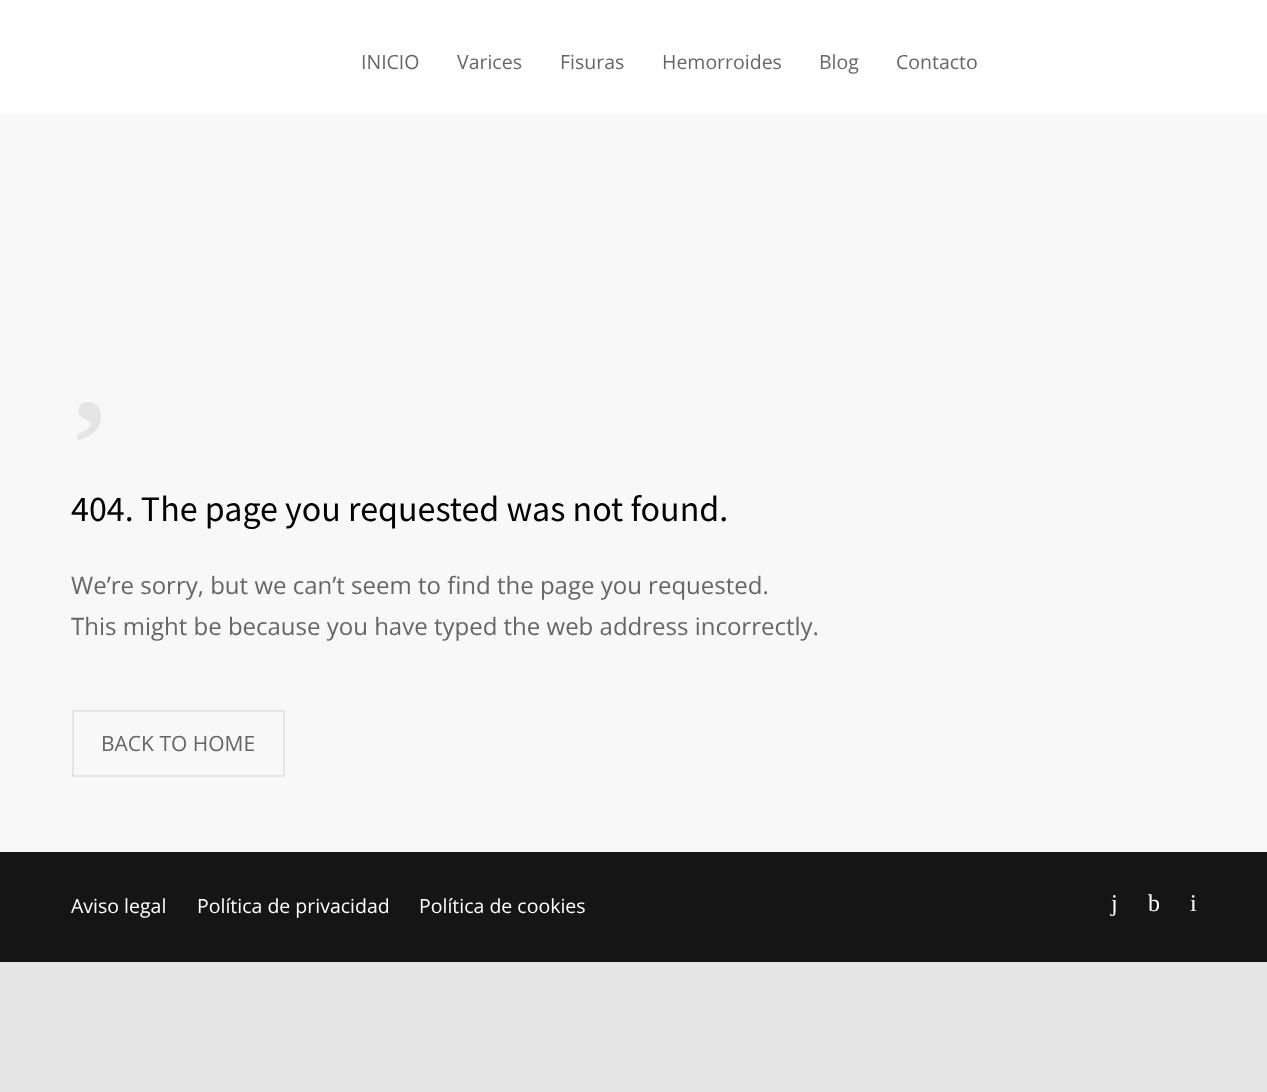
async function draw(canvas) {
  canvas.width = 1267;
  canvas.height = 1092;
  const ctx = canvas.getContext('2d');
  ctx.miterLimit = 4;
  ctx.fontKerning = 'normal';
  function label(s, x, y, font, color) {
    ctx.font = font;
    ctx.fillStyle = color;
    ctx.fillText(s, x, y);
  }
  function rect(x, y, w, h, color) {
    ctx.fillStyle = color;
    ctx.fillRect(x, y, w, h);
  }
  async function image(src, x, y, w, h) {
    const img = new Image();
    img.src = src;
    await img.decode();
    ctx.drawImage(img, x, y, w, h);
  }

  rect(0, 0, 1267, 1092, '#e5e5e5');
  rect(0, 114, 1267, 738, '#f8f8f8');
  rect(0, 0, 1267, 114, '#fff');
  label('INICIO', 361, 69, '19.5px Open Sans', '#666');
  label('Varices', 457, 69, '19.5px Open Sans', '#666');
  label('Fisuras', 560, 69, '19.5px Open Sans', '#666');
  label('Hemorroides', 662, 69, '19.5px Open Sans', '#666');
  label('Blog', 819, 69, '19.5px Open Sans', '#666');
  label('Contacto', 896, 69, '19.5px Open Sans', '#666');
  await image('assets/img1.png', 77, 402, 24, 39);
  label('404. The page you requested was not found.', 71, 521, '36px Source Sans Pro', '#000');
  label('We’re sorry, but we can’t seem to find the page you requested.', 71, 594, '24px Open Sans', '#666');
  label('This might be because you have typed the web address incorrectly.', 71, 635, '24px Open Sans', '#666');
  ctx.strokeStyle = '#e5e5e5';
  ctx.lineWidth = 2;
  ctx.strokeRect(73, 711, 211, 65);
  label('BACK TO HOME', 101, 751, '21px Open Sans', '#666');
  rect(0, 852, 1267, 110, '#151515');
  label('Aviso legal', 71, 913, '19.5px Open Sans', '#fff');
  label('Política de privacidad', 197, 913, '19.5px Open Sans', '#fff');
  label('Política de cookies', 419, 913, '19.5px Open Sans', '#fff');
  label('j', 1111, 911, '24px Liberation Serif', '#fff');
  label('b', 1148, 911, '24px Liberation Serif', '#fff');
  label('i', 1190, 911, '24px Liberation Serif', '#fff');
}

draw(document.querySelector('canvas'));
